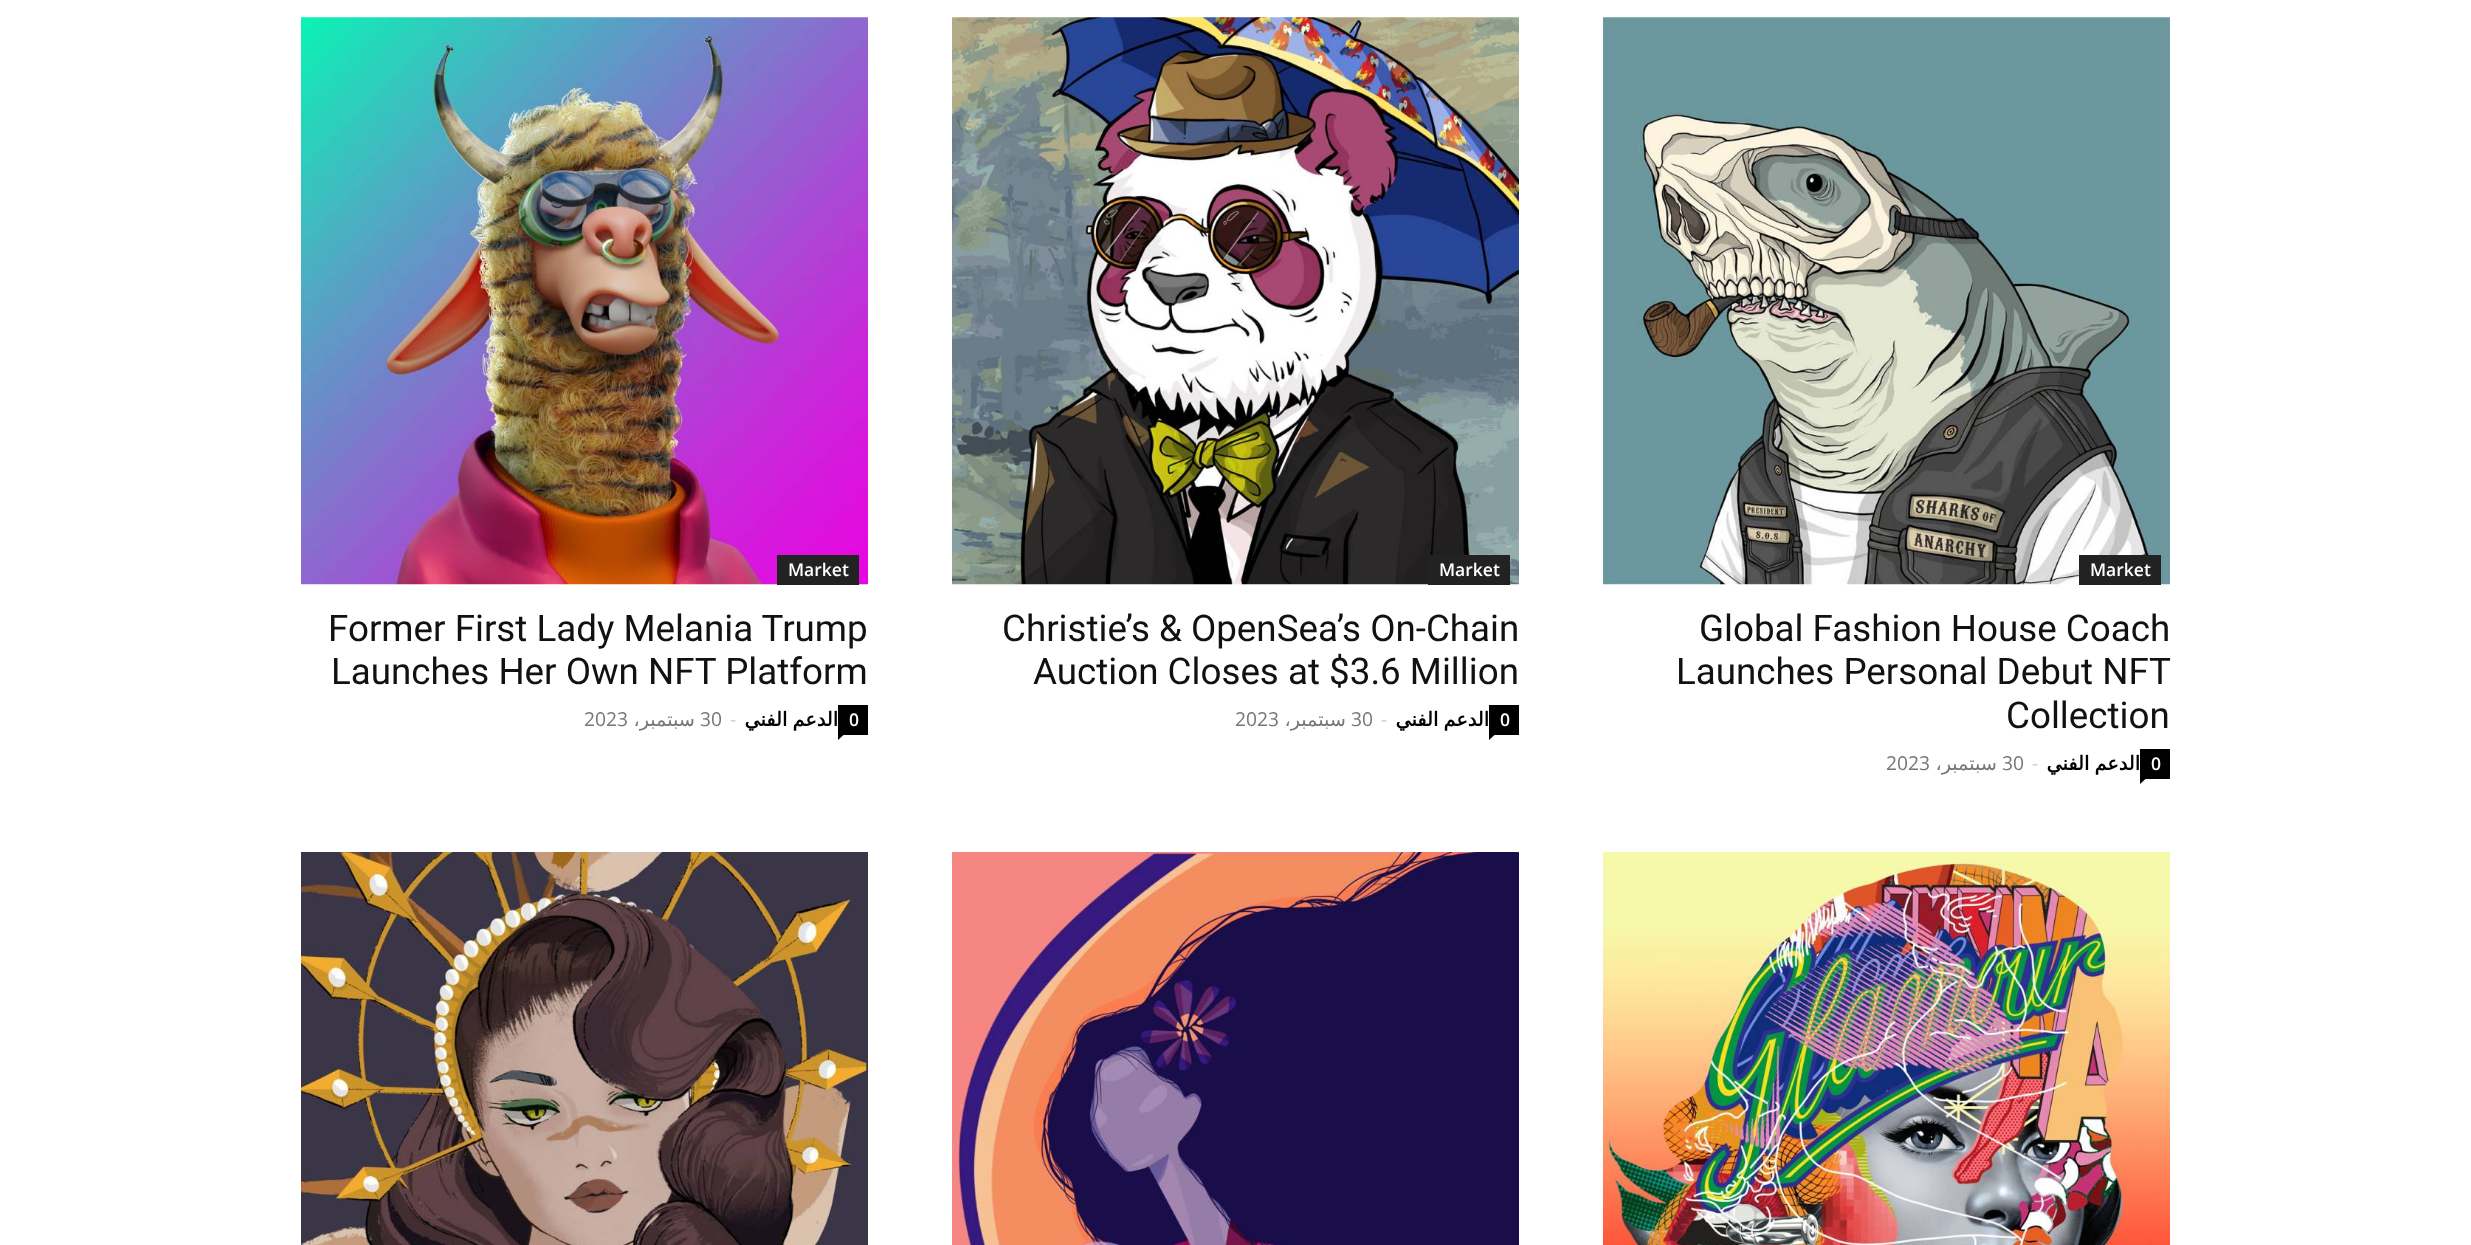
async function draw(canvas) {
  canvas.width = 2471;
  canvas.height = 1245;
  const ctx = canvas.getContext('2d');
  ctx.miterLimit = 4;
  ctx.fontKerning = 'normal';
  function label(s, x, y, font, color) {
    ctx.font = font;
    ctx.fillStyle = color;
    ctx.fillText(s, x, y);
  }
  function rect(x, y, w, h, color) {
    ctx.fillStyle = color;
    ctx.fillRect(x, y, w, h);
  }
  async function image(src, x, y, w, h) {
    const img = new Image();
    img.src = src;
    await img.decode();
    ctx.drawImage(img, x, y, w, h);
  }
  let path;

  rect(0, 0, 2471, 1245, '#fff');
  await image('assets/img1.png', 301, 17, 567, 568);
  rect(777, 555, 82, 30, '#222');
  label('Market', 788, 576, '600 17.5px Open Sans', '#fff');
  label('Former First Lady Melania Trump', 328, 641, '36.75px Roboto', '#111');
  label('Launches Her Own NFT Platform', 331, 684, '36.75px Roboto', '#111');
  label('2023', 584, 726, '19.25px Open Sans', '#767676');
  ctx.direction = 'rtl';
  label('سبتمبر،', 695, 726, '19.25px DejaVu Sans', '#767676');
  ctx.direction = 'ltr';
  label('30', 700, 726, '19.25px Open Sans', '#767676');
  label('-', 730, 726, '19.25px Open Sans', '#ccc');
  ctx.wordSpacing = '-1px';
  ctx.direction = 'rtl';
  label('الدعم الفني', 838, 726, 'bold 19.25px DejaVu Sans', '#000');
  rect(838, 705, 30, 30, '#000');
  ctx.wordSpacing = '0px';
  ctx.direction = 'ltr';
  label('0', 849, 726, '600 17.5px Open Sans', '#fff');
  ctx.fillStyle = '#000';
  path = new Path2D('M838 735H843.5L838 740Z');
  ctx.fill(path);
  await image('assets/img2.png', 952, 17, 567, 568);
  rect(1428, 555, 82, 30, '#222');
  label('Market', 1439, 576, '600 17.5px Open Sans', '#fff');
  label('Christie’s & OpenSea’s On-Chain', 1002, 641, '36.75px Roboto', '#111');
  label('Auction Closes at $3.6 Million', 1033, 684, '36.75px Roboto', '#111');
  label('2023', 1235, 726, '19.25px Open Sans', '#767676');
  ctx.direction = 'rtl';
  label('سبتمبر،', 1346, 726, '19.25px DejaVu Sans', '#767676');
  ctx.direction = 'ltr';
  label('30', 1351, 726, '19.25px Open Sans', '#767676');
  label('-', 1381, 726, '19.25px Open Sans', '#ccc');
  ctx.wordSpacing = '-1px';
  ctx.direction = 'rtl';
  label('الدعم الفني', 1489, 726, 'bold 19.25px DejaVu Sans', '#000');
  rect(1489, 705, 30, 30, '#000');
  ctx.wordSpacing = '0px';
  ctx.direction = 'ltr';
  label('0', 1500, 726, '600 17.5px Open Sans', '#fff');
  ctx.fillStyle = '#000';
  path = new Path2D('M1489 735H1494.5L1489 740Z');
  ctx.fill(path);
  await image('assets/img3.png', 1603, 17, 567, 568);
  rect(2079, 555, 82, 30, '#222');
  label('Market', 2090, 576, '600 17.5px Open Sans', '#fff');
  label('Global Fashion House Coach', 1699, 641, '36.75px Roboto', '#111');
  label('Launches Personal Debut NFT', 1676, 684, '36.75px Roboto', '#111');
  label('Collection', 2006, 728, '36.75px Roboto', '#111');
  label('2023', 1886, 770, '19.25px Open Sans', '#767676');
  ctx.direction = 'rtl';
  label('سبتمبر،', 1997, 770, '19.25px DejaVu Sans', '#767676');
  ctx.direction = 'ltr';
  label('30', 2002, 770, '19.25px Open Sans', '#767676');
  label('-', 2032, 770, '19.25px Open Sans', '#ccc');
  ctx.wordSpacing = '-1px';
  ctx.direction = 'rtl';
  label('الدعم الفني', 2140, 770, 'bold 19.25px DejaVu Sans', '#000');
  rect(2140, 749, 30, 30, '#000');
  ctx.wordSpacing = '0px';
  ctx.direction = 'ltr';
  label('0', 2151, 770, '600 17.5px Open Sans', '#fff');
  ctx.fillStyle = '#000';
  path = new Path2D('M2140 779H2145.5L2140 784Z');
  ctx.fill(path);
  await image('assets/img4.png', 301, 852, 567, 393);
  await image('assets/img5.png', 952, 852, 567, 393);
  await image('assets/img6.png', 1603, 852, 567, 393);
}

draw(document.querySelector('canvas'));
